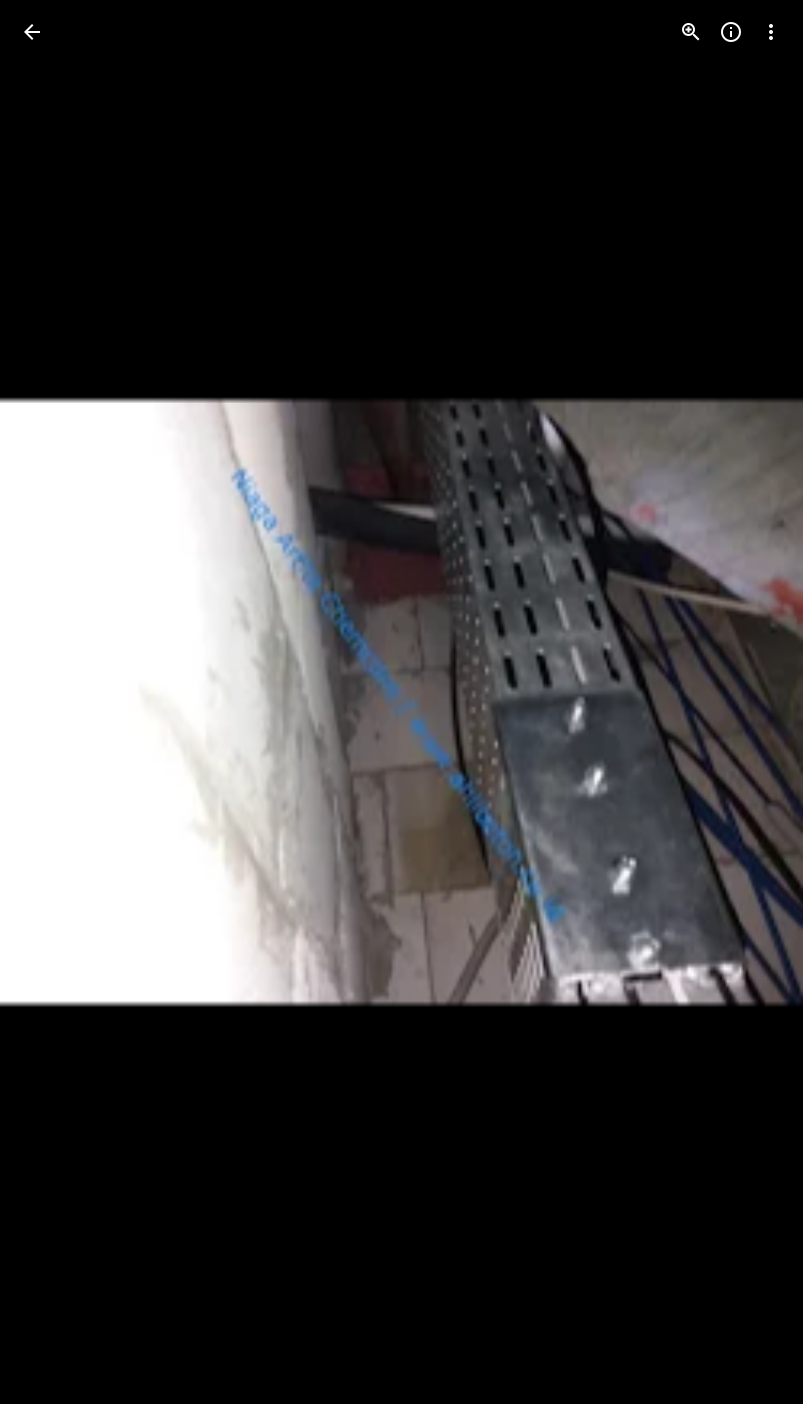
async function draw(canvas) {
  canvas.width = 803;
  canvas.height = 1404;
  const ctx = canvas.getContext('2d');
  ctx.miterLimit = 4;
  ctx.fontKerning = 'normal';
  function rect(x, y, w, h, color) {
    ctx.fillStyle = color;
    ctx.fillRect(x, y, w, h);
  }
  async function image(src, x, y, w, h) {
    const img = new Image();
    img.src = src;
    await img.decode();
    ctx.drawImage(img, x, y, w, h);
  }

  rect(0, 0, 803, 1404, '#000');
  await image('assets/img1.png', 24, 24, 16, 16);
  await image('assets/img2.png', 682, 23, 18, 18);
  await image('assets/img3.png', 721, 22, 20, 20);
  await image('assets/img4.png', 769, 24, 4, 16);
  await image('assets/img5.png', 0, 397, 803, 610);
}

draw(document.querySelector('canvas'));
